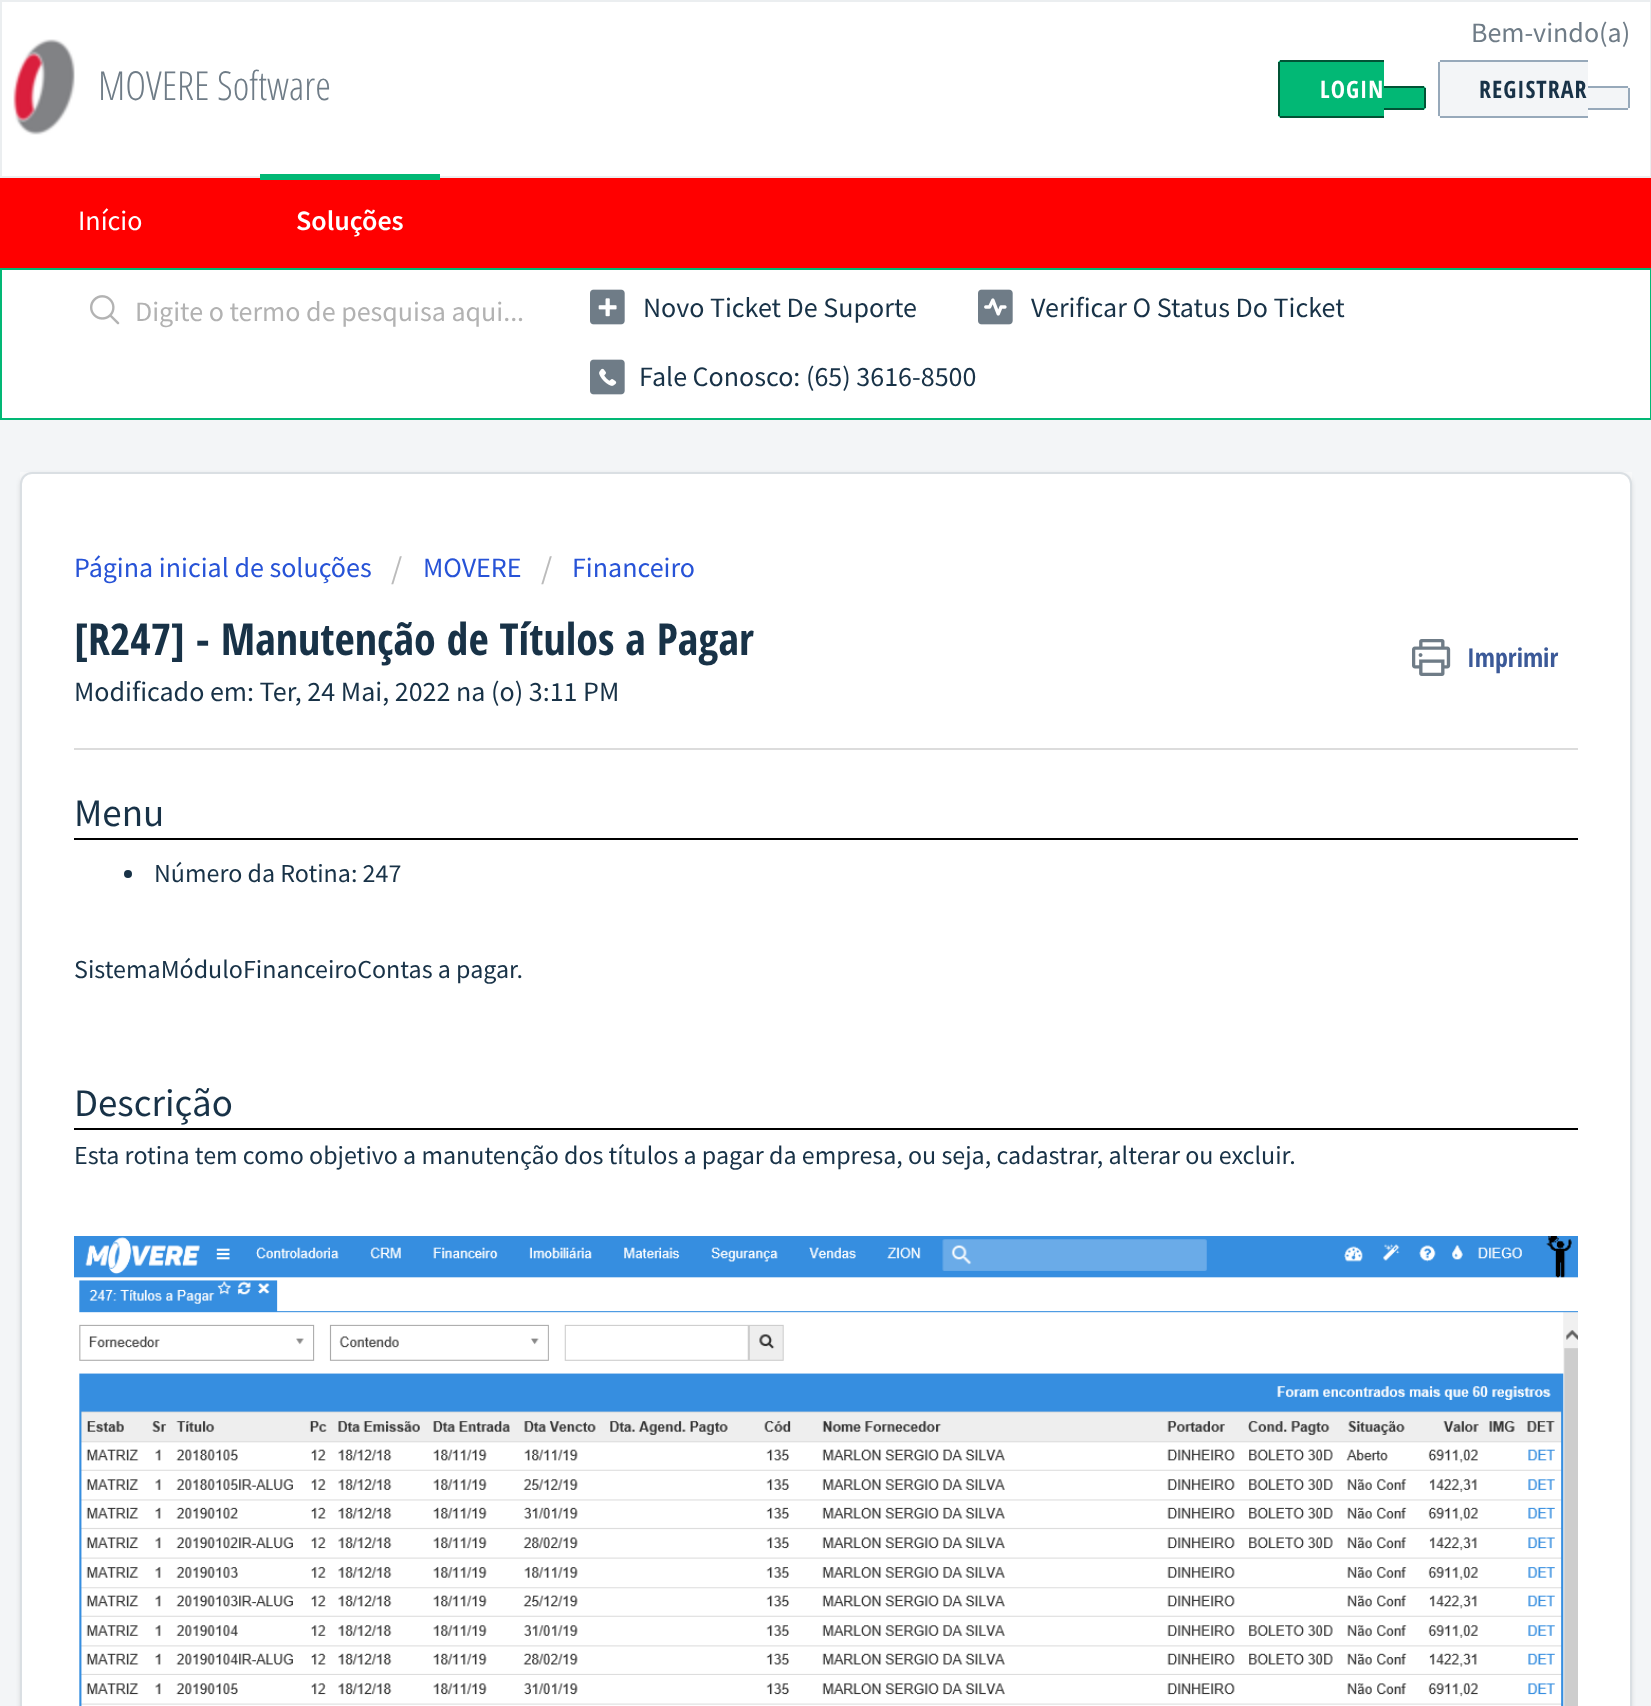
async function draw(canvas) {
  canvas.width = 1651;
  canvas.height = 1706;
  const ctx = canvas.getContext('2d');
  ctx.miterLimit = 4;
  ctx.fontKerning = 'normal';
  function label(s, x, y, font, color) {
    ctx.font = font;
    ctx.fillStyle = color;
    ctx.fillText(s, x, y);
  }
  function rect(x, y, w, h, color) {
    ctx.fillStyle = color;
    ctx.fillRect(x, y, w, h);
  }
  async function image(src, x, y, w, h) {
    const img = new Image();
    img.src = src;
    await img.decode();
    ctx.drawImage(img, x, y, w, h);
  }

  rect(0, 0, 1651, 1706, '#f3f5f7');
  ctx.fillStyle = '#fff';
  ctx.beginPath();
  ctx.rect(1, 1, 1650, 176);
  ctx.fill();
  ctx.strokeStyle = '#ebeef0';
  ctx.lineWidth = 2;
  ctx.stroke();
  await image('assets/img1.png', 13, 39, 62, 96);
  label('MOVERE Software', 98, 100, '300 40px Open Sans Condensed', '#6f7c87');
  label('Bem-vindo(a)', 1471, 42, '28px Source Sans Pro', '#6f7c87');
  ctx.fillStyle = '#02b875';
  ctx.beginPath();
  ctx.roundRect(1278, 60, 106, 58, [4, 0, 0, 4]);
  ctx.fill();
  ctx.letterSpacing = '1px';
  label('LOGIN', 1320, 98, 'bold 24px Open Sans Condensed', '#fff');
  rect(1280, 60, 104, 2, '#015335');
  rect(1280, 116, 104, 2, '#015335');
  rect(1278, 62, 2, 54, '#015335');
  ctx.fillStyle = '#02b875';
  ctx.beginPath();
  ctx.roundRect(1384, 86, 42, 24, [0, 4, 4, 0]);
  ctx.fill();
  rect(1384, 86, 40, 2, '#015335');
  rect(1424, 88, 2, 20, '#015335');
  rect(1384, 108, 40, 2, '#015335');
  ctx.fillStyle = '#f3f5f7';
  ctx.beginPath();
  ctx.roundRect(1438, 60, 150, 58, [4, 0, 0, 4]);
  ctx.fill();
  label('REGISTRAR', 1479, 98, 'bold 24px Open Sans Condensed', '#183247');
  rect(1440, 60, 148, 2, '#97a9ba');
  rect(1440, 116, 148, 2, '#97a9ba');
  rect(1438, 62, 2, 54, '#97a9ba');
  ctx.fillStyle = '#f3f5f7';
  ctx.beginPath();
  ctx.roundRect(1588, 86, 42, 24, [0, 4, 4, 0]);
  ctx.fill();
  rect(1588, 86, 40, 2, '#97a9ba');
  rect(1628, 88, 2, 20, '#97a9ba');
  rect(1588, 108, 40, 2, '#97a9ba');
  rect(0, 178, 1651, 90, '#f00');
  ctx.letterSpacing = '0px';
  label('Início', 78, 230, '28px Source Sans Pro', '#fff');
  rect(260, 174, 180, 6, '#02b875');
  label('Soluções', 296, 230, '600 28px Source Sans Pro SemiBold', '#fff');
  ctx.beginPath();
  ctx.rect(1, 269, 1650, 150);
  ctx.fill();
  ctx.strokeStyle = '#02b875';
  ctx.stroke();
  await image('assets/img2.png', 90, 295, 30, 30);
  label('Digite o termo de pesquisa aqui...', 135, 321, '28px Source Sans Pro', '#b2b2b2');
  await image('assets/img3.png', 590, 289, 35, 36);
  label('Novo Ticket De Suporte', 643, 317, '28px Source Sans Pro', '#183247');
  await image('assets/img4.png', 978, 289, 35, 36);
  label('Verificar O Status Do Ticket', 1031, 317, '28px Source Sans Pro', '#183247');
  await image('assets/img5.png', 590, 359, 35, 36);
  label('Fale Conosco: (65) 3616-8500', 639, 386, '28px Source Sans Pro', '#183247');
  rect(20, 472, 1612, 12, '#f8f9fa');
  ctx.fillStyle = '#3f3f4426';
  ctx.filter = 'blur(2px)';
  ctx.beginPath();
  ctx.roundRect(20, 474, 1612, 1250, 12);
  ctx.fill();
  ctx.filter = 'none';
  ctx.fillStyle = '#fff';
  ctx.beginPath();
  ctx.roundRect(21, 473, 1610, 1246, 11);
  ctx.fill();
  ctx.strokeStyle = '#dadfe3';
  ctx.stroke();
  label('Página inicial de soluções', 74, 577, '28px Source Sans Pro', '#2753d7');
  label('/', 391, 579, '32px Source Sans Pro', '#bbb');
  label('MOVERE', 423, 577, '28px Source Sans Pro', '#2753d7');
  label('/', 541, 579, '32px Source Sans Pro', '#bbb');
  label('Financeiro', 572, 577, '28px Source Sans Pro', '#2753d7');
  label('[R247] - Manutenção de Títulos a Pagar', 74, 655, 'bold 44px Open Sans Condensed', '#183247');
  await image('assets/img6.png', 1412, 639, 39, 37);
  label('Imprimir', 1467, 667, 'bold 26px Open Sans Condensed', '#3b5998');
  label('Modificado em: Ter, 24 Mai, 2022 na (o) 3:11 PM', 74, 701, '28px Source Sans Pro', '#183247');
  rect(74, 748, 1504, 2, '#dcdcdc');
  rect(74, 838, 1504, 2, '#000');
  label('Menu', 74, 826, '39px Source Sans Pro', '#183247');
  ctx.beginPath();
  ctx.arc(128, 874, 4, 0, 2 * Math.PI);
  ctx.fill();
  label('Número da Rotina: 247', 154, 882, '26px Source Sans Pro', '#183247');
  label('SistemaMóduloFinanceiroContas a pagar.', 74, 978, '26px Source Sans Pro', '#183247');
  rect(74, 1128, 1504, 2, '#000');
  label('Descrição', 74, 1116, '39px Source Sans Pro', '#183247');
  label('Esta rotina tem como objetivo a manutenção dos títulos a pagar da empresa, ou seja, cadastrar, alterar ou excluir.', 74, 1164, '26px Source Sans Pro', '#183247');
  await image('assets/img7.png', 74, 1236, 1504, 470);
}

draw(document.querySelector('canvas'));
